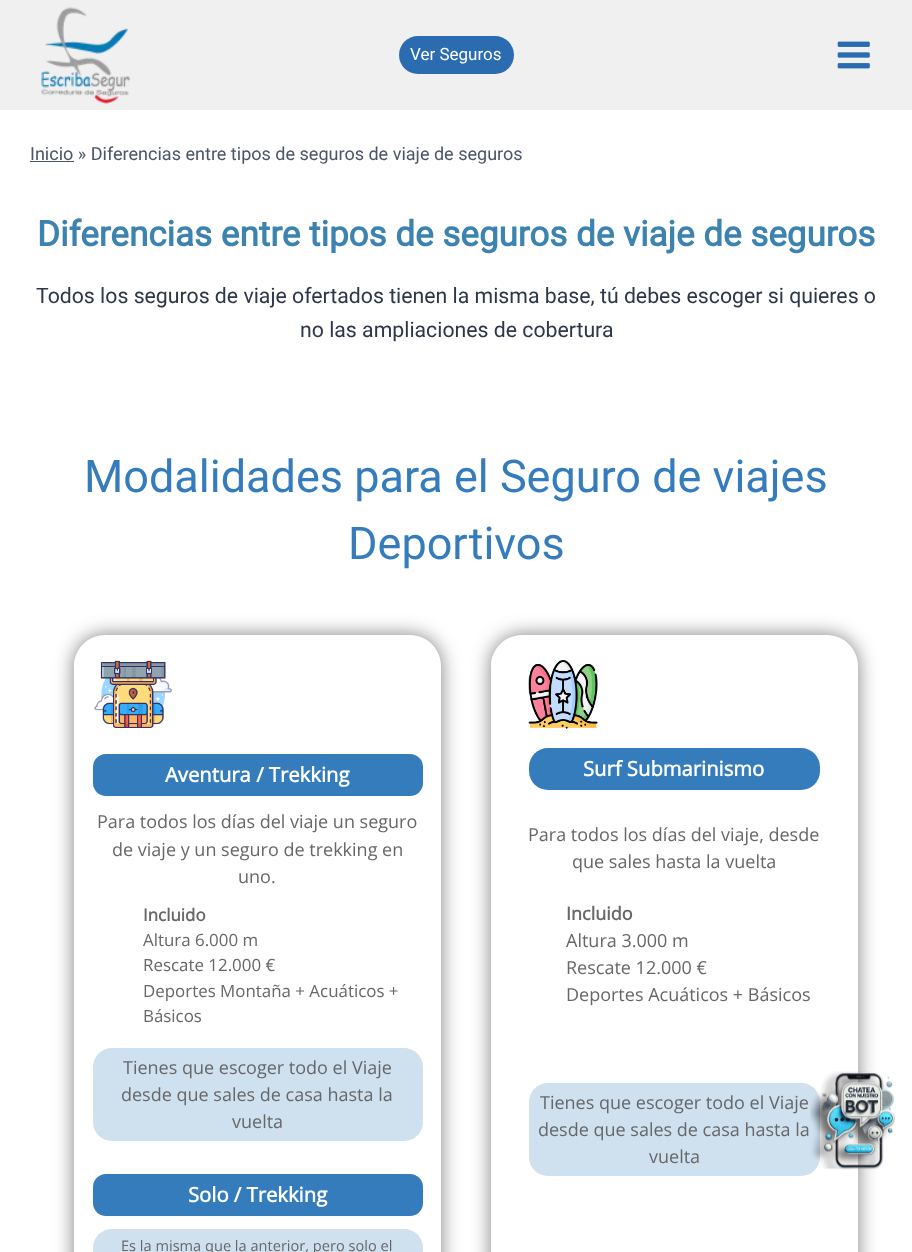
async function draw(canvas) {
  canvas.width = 912;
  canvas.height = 1252;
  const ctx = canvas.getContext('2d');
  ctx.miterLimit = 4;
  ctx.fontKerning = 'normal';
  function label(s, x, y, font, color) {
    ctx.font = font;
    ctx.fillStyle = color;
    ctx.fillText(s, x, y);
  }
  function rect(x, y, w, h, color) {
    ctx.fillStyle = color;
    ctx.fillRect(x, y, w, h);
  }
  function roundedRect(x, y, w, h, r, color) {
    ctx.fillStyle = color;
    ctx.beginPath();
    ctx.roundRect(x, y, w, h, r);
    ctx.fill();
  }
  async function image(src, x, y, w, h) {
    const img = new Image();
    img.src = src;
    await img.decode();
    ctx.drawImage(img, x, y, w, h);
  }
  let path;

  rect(0, 0, 912, 1252, '#fff');
  rect(0, 0, 912, 110, '#f0f0f1');
  await image('assets/img1.png', 41, 7, 90, 97);
  roundedRect(399, 36, 115, 38, 19, '#2b6cb0');
  label('Ver Seguros', 410, 60, '17px Roboto', '#fff');
  await image('assets/img2.png', 837, 41, 33, 28);
  rect(30, 161, 44, 1, '#4a5568');
  label('Inicio » Diferencias entre tipos de seguros de viaje de seguros', 30, 160, '18.05px Roboto', '#4a5568');
  label('Diferencias entre tipos de seguros de viaje de seguros', 37, 246, 'bold 35px Roboto', '#3d83af');
  label('Todos los seguros de viaje ofertados tienen la misma base, tú debes escoger si quieres o', 36, 303, '21.25px Roboto', '#2d3748');
  label('no las ampliaciones de cobertura', 300, 337, '21.25px Roboto', '#2d3748');
  label('Modalidades para el Seguro de viajes', 84, 492, '45px Roboto', '#357cbd');
  label('Deportivos', 348, 559, '45px Roboto', '#357cbd');
  ctx.save();
  path = new Path2D('M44 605H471V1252H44ZM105 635H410C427 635 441 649 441 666V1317C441 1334 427 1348 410 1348H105C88 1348 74 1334 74 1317V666C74 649 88 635 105 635Z');
  ctx.clip(path, 'evenodd');
  ctx.fillStyle = '#00000080';
  ctx.filter = 'blur(9.5px)';
  ctx.beginPath();
  ctx.roundRect(74, 635, 367, 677, 31);
  ctx.fill();
  ctx.filter = 'none';
  ctx.restore();
  await image('assets/img3.png', 94, 660, 78, 68);
  roundedRect(93, 754, 330, 42, 13, '#357cbd');
  label('Aventura / Trekking', 165, 782, 'bold 20.25px Open Sans', '#fff');
  label('Para todos los días del viaje un seguro', 97, 828, '18px Open Sans', '#666769');
  label('de viaje y un seguro de trekking en', 112, 856, '18px Open Sans', '#666769');
  label('uno.', 238, 883, '18px Open Sans', '#666769');
  label('Incluido', 143, 921, 'bold 16.9px Open Sans', '#666769');
  label('Altura 6.000 m', 143, 946, '16.9px Open Sans', '#666769');
  label('Rescate 12.000 €', 143, 971, '16.9px Open Sans', '#666769');
  label('Deportes Montaña + Acuáticos +', 143, 997, '16.9px Open Sans', '#666769');
  label('Básicos', 143, 1022, '16.9px Open Sans', '#666769');
  roundedRect(93, 1048, 330, 93, 19, '#cfe0ef');
  label('Tienes que escoger todo el Viaje', 123, 1074, '18px Open Sans', '#666769');
  label('desde que sales de casa hasta la', 121, 1101, '18px Open Sans', '#666769');
  label('vuelta', 232, 1128, '18px Open Sans', '#666769');
  roundedRect(93, 1174, 330, 42, 13, '#357cbd');
  label('Solo / Trekking', 188, 1202, 'bold 20.25px Open Sans', '#fff');
  roundedRect(93, 1229, 330, 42, 19, '#cfe0ef');
  label('Es la misma que la anterior, pero solo el', 121, 1251, '14.6px Open Sans', '#666769');
  ctx.save();
  path = new Path2D('M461 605H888V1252H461ZM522 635H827C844 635 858 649 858 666V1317C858 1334 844 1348 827 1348H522C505 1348 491 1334 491 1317V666C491 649 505 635 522 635Z');
  ctx.clip(path, 'evenodd');
  ctx.fillStyle = '#00000080';
  ctx.filter = 'blur(9.5px)';
  ctx.beginPath();
  ctx.roundRect(491, 635, 367, 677, 31);
  ctx.fill();
  ctx.filter = 'none';
  ctx.restore();
  await image('assets/img4.png', 528, 660, 70, 69);
  roundedRect(529, 748, 291, 42, 19, '#357cbd');
  label('Surf Submarinismo', 583, 776, 'bold 20.25px Open Sans', '#fff');
  label('Para todos los días del viaje, desde', 528, 841, '18px Open Sans', '#666769');
  label('que sales hasta la vuelta', 572, 868, '18px Open Sans', '#666769');
  label('Incluido', 566, 920, 'bold 18px Open Sans', '#666769');
  label('Altura 3.000 m', 566, 947, '18px Open Sans', '#666769');
  label('Rescate 12.000 €', 566, 974, '18px Open Sans', '#666769');
  label('Deportes Acuáticos + Básicos', 566, 1001, '18px Open Sans', '#666769');
  roundedRect(529, 1083, 291, 93, 19, '#cfe0ef');
  label('Tienes que escoger todo el Viaje', 540, 1109, '18px Open Sans', '#666769');
  label('desde que sales de casa hasta la', 538, 1136, '18px Open Sans', '#666769');
  label('vuelta', 649, 1163, '18px Open Sans', '#666769');
  await image('assets/img5.png', 810, 1071, 85, 99);
}

draw(document.querySelector('canvas'));
